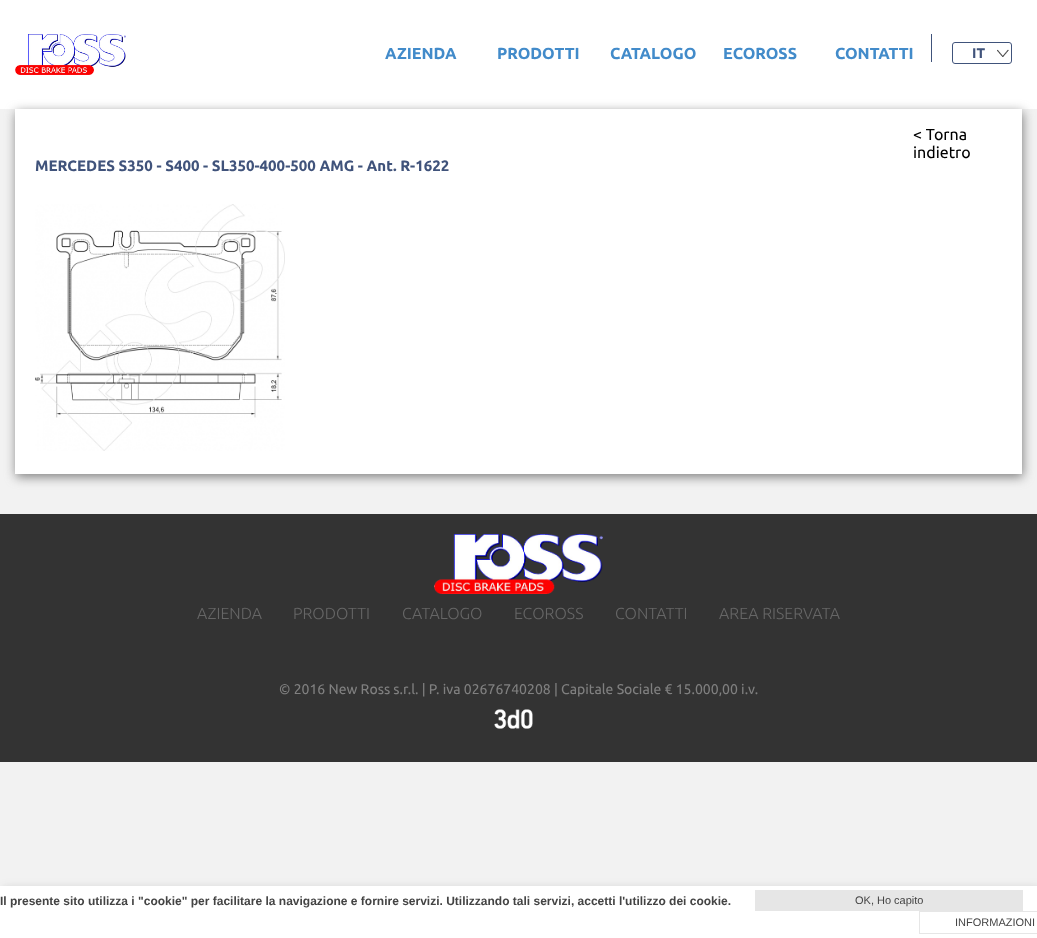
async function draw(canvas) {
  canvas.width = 1037;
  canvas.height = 938;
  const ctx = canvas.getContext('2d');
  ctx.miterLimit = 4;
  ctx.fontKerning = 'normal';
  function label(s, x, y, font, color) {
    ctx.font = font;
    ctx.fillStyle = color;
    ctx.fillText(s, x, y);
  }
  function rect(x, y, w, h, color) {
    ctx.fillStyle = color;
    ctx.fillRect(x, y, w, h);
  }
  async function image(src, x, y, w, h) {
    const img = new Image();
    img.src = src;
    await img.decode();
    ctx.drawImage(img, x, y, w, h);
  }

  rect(0, 0, 1037, 938, '#f2f2f2');
  rect(0, 0, 1037, 109, '#fff');
  await image('assets/img1.png', 15, 34, 111, 41);
  rect(931, 34, 1, 28, '#40537b');
  label('AZIENDA', 385, 59, 'bold 16px Ubuntu', '#428bca');
  label('PRODOTTI', 497, 59, 'bold 16px Ubuntu', '#428bca');
  label('CATALOGO', 610, 59, 'bold 16px Ubuntu', '#428bca');
  label('ECOROSS', 723, 59, 'bold 16px Ubuntu', '#428bca');
  label('CONTATTI', 835, 59, 'bold 16px Ubuntu', '#428bca');
  await image('assets/img2.png', 997, 49, 12, 8);
  ctx.beginPath();
  ctx.roundRect(952.5, 42.5, 59, 21, 2.5);
  ctx.strokeStyle = '#40537b';
  ctx.stroke();
  label('IT', 972, 58, 'bold 14px Ubuntu', '#40537b');
  ctx.fillStyle = '#727272e3';
  ctx.filter = 'blur(5.5px)';
  ctx.beginPath();
  ctx.rect(16, 112, 1007, 365);
  ctx.fill();
  ctx.filter = 'none';
  rect(15, 109, 1007, 365, '#fff');
  label('< Torna', 913, 140, '16px Ubuntu', '#000');
  label('indietro', 913, 158, '16px Ubuntu', '#000');
  label('MERCEDES S350 - S400 - SL350-400-500 AMG - Ant. R-1622', 35, 171, 'bold 15px Ubuntu', '#40537b');
  await image('assets/img3.png', 35, 204, 250, 247);
  rect(0, 514, 1037, 248, '#333');
  await image('assets/img4.png', 434, 534, 169, 60);
  label('AZIENDA', 197, 619, '300 16px Ubuntu', '#666');
  label('PRODOTTI', 293, 619, '300 16px Ubuntu', '#666');
  label('CATALOGO', 402, 619, '300 16px Ubuntu', '#666');
  label('ECOROSS', 514, 619, '300 16px Ubuntu', '#666');
  label('CONTATTI', 615, 619, '300 16px Ubuntu', '#666');
  label('AREA RISERVATA', 719, 619, '300 16px Ubuntu', '#666');
  label('© 2016 New Ross s.r.l. | P. iva 02676740208 | Capitale Sociale € 15.000,00 i.v.', 279, 694, '14px Ubuntu', '#808080');
  await image('assets/img5.png', 494, 709, 39, 20);
  ctx.fillStyle = '#32323226';
  ctx.filter = 'blur(4.5px)';
  ctx.beginPath();
  ctx.rect(3, 887, 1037, 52);
  ctx.fill();
  ctx.filter = 'none';
  rect(0, 886, 1037, 52, '#fff');
  label('Il presente sito utilizza i "cookie" per facilitare la navigazione e fornire servizi. Utilizzando tali servizi, accetti l\'utilizzo dei cookie.', 0, 905, 'bold 12px Liberation Sans', '#444');
  rect(755, 890, 268, 21, '#e6e6e6');
  label('OK, Ho capito', 855, 904, '11px Liberation Sans', '#444');
  ctx.strokeStyle = '#e6e6e6';
  ctx.strokeRect(919.5, 911.5, 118, 22);
  label('INFORMAZIONI', 955, 926, '11px Liberation Sans', '#444');
}

draw(document.querySelector('canvas'));
